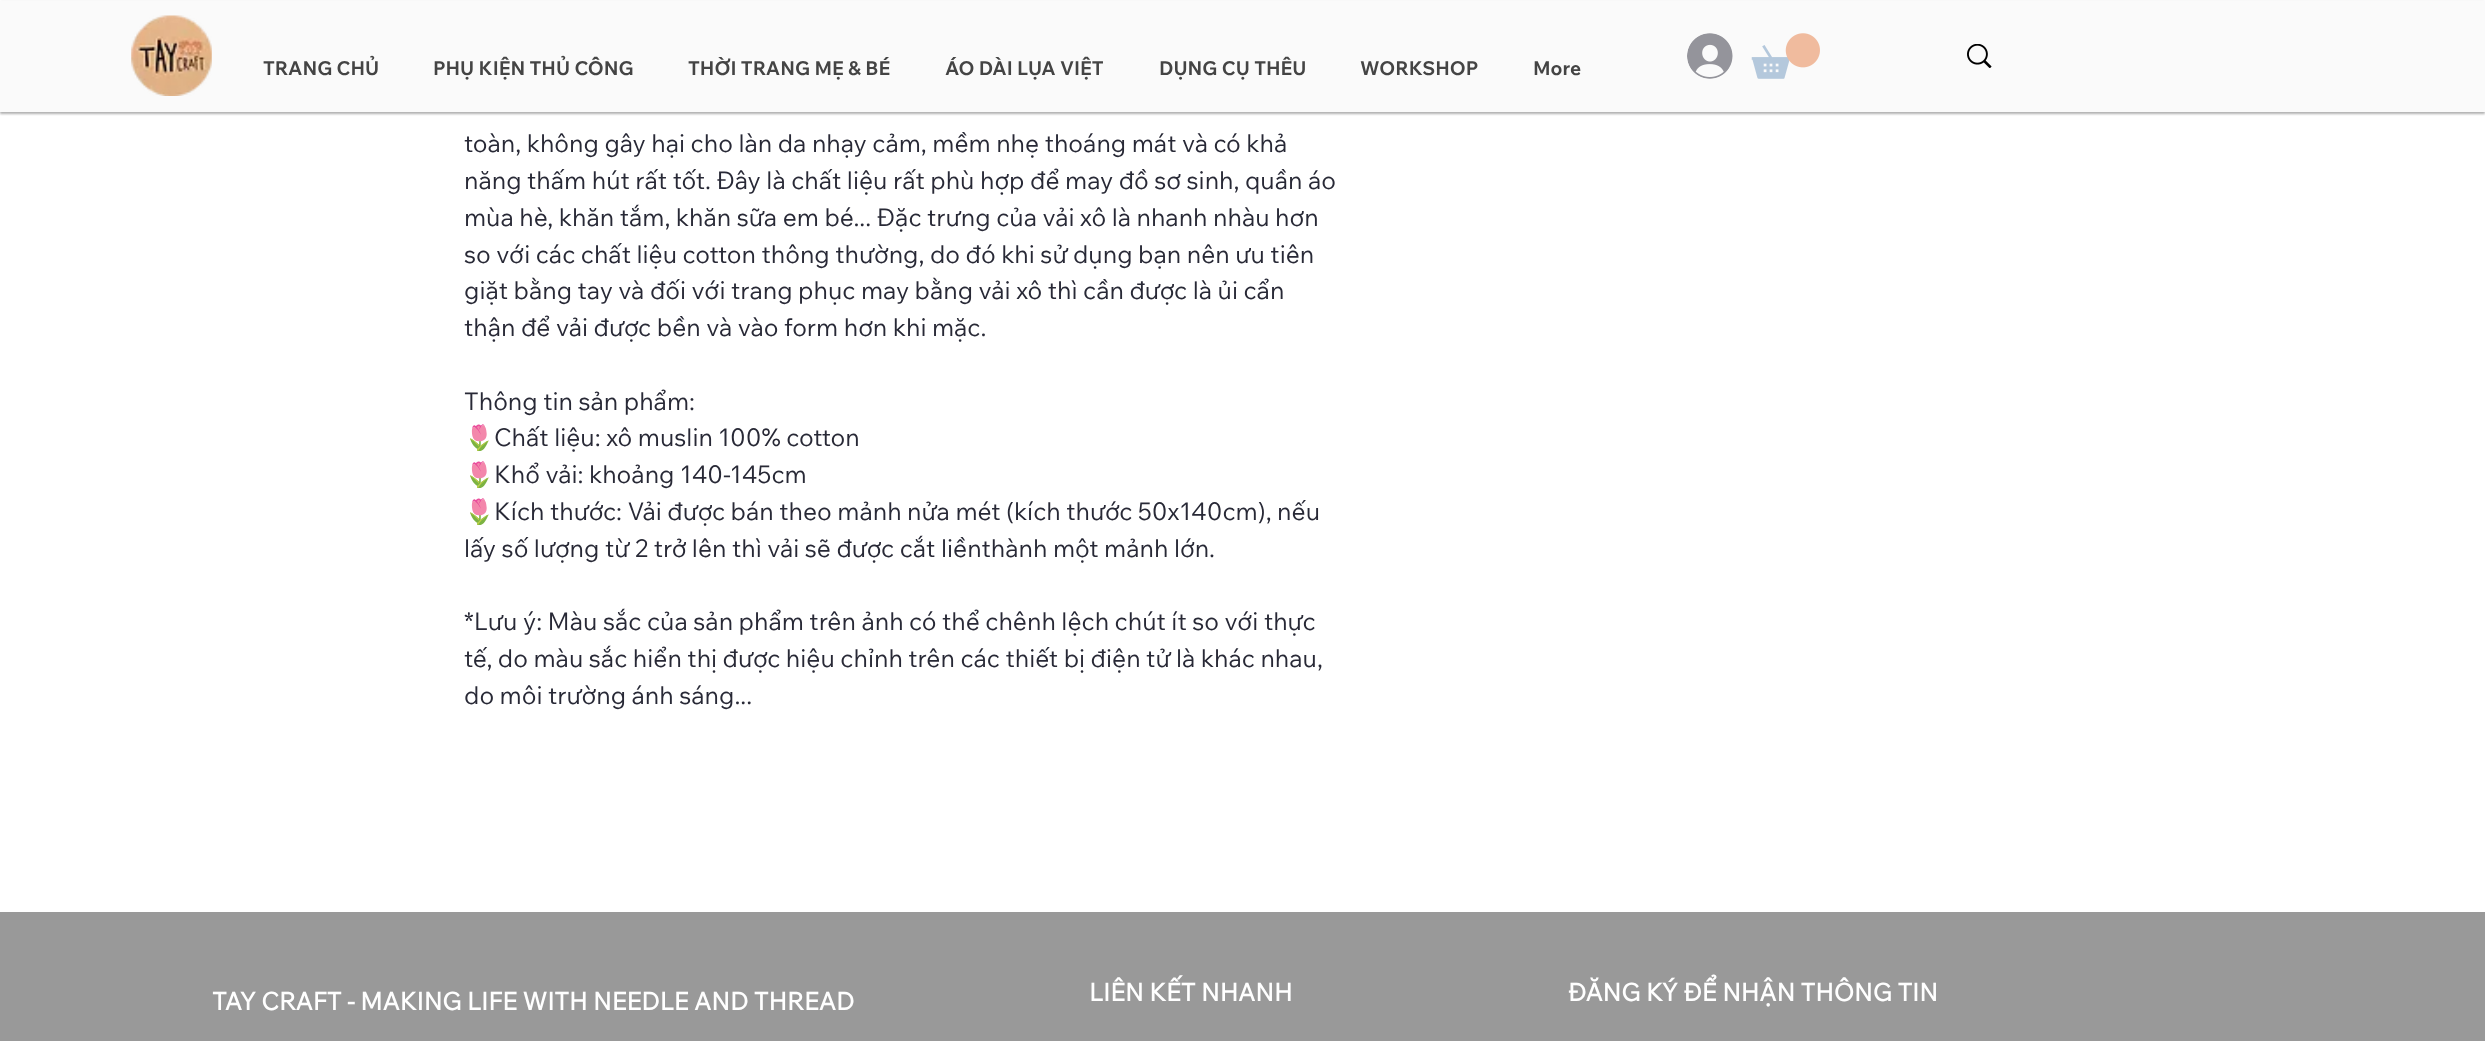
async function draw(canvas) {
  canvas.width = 2485;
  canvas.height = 1041;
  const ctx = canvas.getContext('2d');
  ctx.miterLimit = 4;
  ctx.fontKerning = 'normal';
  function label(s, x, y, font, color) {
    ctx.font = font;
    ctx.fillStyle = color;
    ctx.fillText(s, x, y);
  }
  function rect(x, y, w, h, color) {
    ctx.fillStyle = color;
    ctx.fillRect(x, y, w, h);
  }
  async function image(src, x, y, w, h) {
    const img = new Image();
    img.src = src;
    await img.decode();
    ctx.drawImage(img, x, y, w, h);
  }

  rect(0, 0, 2485, 1041, '#fff');
  ctx.fillStyle = '#0000004f';
  ctx.filter = 'blur(1px)';
  ctx.beginPath();
  ctx.rect(0, 2, 2485, 112);
  ctx.fill();
  ctx.filter = 'none';
  rect(0, 1, 2485, 111, '#fafafa');
  await image('assets/img1.png', 131, 15, 81, 81);
  label('TRANG CHỦ', 263, 75, 'bold 19.25px "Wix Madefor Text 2"', '#444');
  label('PHỤ KIỆN THỦ CÔNG', 433, 75, 'bold 19.25px "Wix Madefor Text 2"', '#444');
  label('THỜI TRANG MẸ & BÉ', 688, 75, 'bold 19.25px "Wix Madefor Text 2"', '#444');
  label('ÁO DÀI LỤA VIỆT', 945, 75, 'bold 19.25px "Wix Madefor Text 2"', '#444');
  label('DỤNG CỤ THÊU', 1159, 75, 'bold 19.25px "Wix Madefor Text 2"', '#444');
  label('WORKSHOP', 1360, 75, 'bold 19.25px "Wix Madefor Text 2"', '#444');
  label('More', 1533, 75, 'bold 19.25px "Wix Madefor Text 2"', '#444');
  await image('assets/img2.png', 1687, 33, 46, 46);
  await image('assets/img3.png', 1751, 33, 69, 46);
  await image('assets/img4.png', 1967, 44, 25, 24);
  label('toàn, không gây hại cho làn da nhạy cảm, mềm nhẹ thoáng mát và có khả', 464, 152, '24.5px Wix Madefor Text', '#282936');
  label('năng thấm hút rất tốt. Đây là chất liệu rất phù hợp để may đồ sơ sinh, quần áo', 464, 189, '24.5px Wix Madefor Text', '#282936');
  label('mùa hè, khăn tắm, khăn sữa em bé... Đặc trưng của vải xô là nhanh nhàu hơn', 464, 226, '24.5px Wix Madefor Text', '#282936');
  label('so với các chất liệu cotton thông thường, do đó khi sử dụng bạn nên ưu tiên', 464, 263, '24.5px Wix Madefor Text', '#282936');
  label('giặt bằng tay và đối với trang phục may bằng vải xô thì cần được là ủi cẩn', 464, 299, '24.5px Wix Madefor Text', '#282936');
  label('thận để vải được bền và vào form hơn khi mặc.', 464, 336, '24.5px Wix Madefor Text', '#282936');
  label('Thông tin sản phẩm:', 464, 410, '24.5px Wix Madefor Text', '#282936');
  ctx.save();
  ctx.beginPath();
  ctx.rect(464, 89, 875, 625);
  ctx.clip();
  label('🌷', 464, 446, '24.5px Noto Color Emoji', '#282936');
  ctx.restore();
  label('Chất liệu: xô muslin 100% cotton', 494, 446, '24.5px Wix Madefor Text', '#282936');
  ctx.save();
  ctx.beginPath();
  ctx.rect(464, 89, 875, 625);
  ctx.clip();
  label('🌷', 464, 483, '24.5px Noto Color Emoji', '#282936');
  ctx.restore();
  label('Khổ vải: khoảng 140-145cm', 494, 483, '24.5px Wix Madefor Text', '#282936');
  ctx.save();
  ctx.beginPath();
  ctx.rect(464, 89, 875, 625);
  ctx.clip();
  label('🌷', 464, 520, '24.5px Noto Color Emoji', '#282936');
  ctx.restore();
  label('Kích thước: Vải được bán theo mảnh nửa mét (kích thước 50x140cm), nếu', 494, 520, '24.5px Wix Madefor Text', '#282936');
  label('lấy số lượng từ 2 trở lên thì vải sẽ được cắt liềnthành một mảnh lớn.', 464, 557, '24.5px Wix Madefor Text', '#282936');
  label('*Lưu ý: Màu sắc của sản phẩm trên ảnh có thể chênh lệch chút ít so với thực', 464, 630, '24.5px Wix Madefor Text', '#282936');
  label('tế, do màu sắc hiển thị được hiệu chỉnh trên các thiết bị điện tử là khác nhau,', 464, 667, '24.5px Wix Madefor Text', '#282936');
  label('do môi trường ánh sáng...', 464, 704, '24.5px Wix Madefor Text', '#282936');
  rect(0, 912, 2485, 129, '#999');
  label('TAY CRAFT - MAKING LIFE WITH NEEDLE AND THREAD', 212, 1010, 'bold 24.5px Wix Madefor Text', '#fff');
  label('LIÊN KẾT NHANH', 1089, 1001, 'bold 24.5px Wix Madefor Text', '#fff');
  label('ĐĂNG KÝ ĐỂ NHẬN THÔNG TIN', 1568, 1001, 'bold 24.5px Wix Madefor Text', '#fff');
}

draw(document.querySelector('canvas'));
